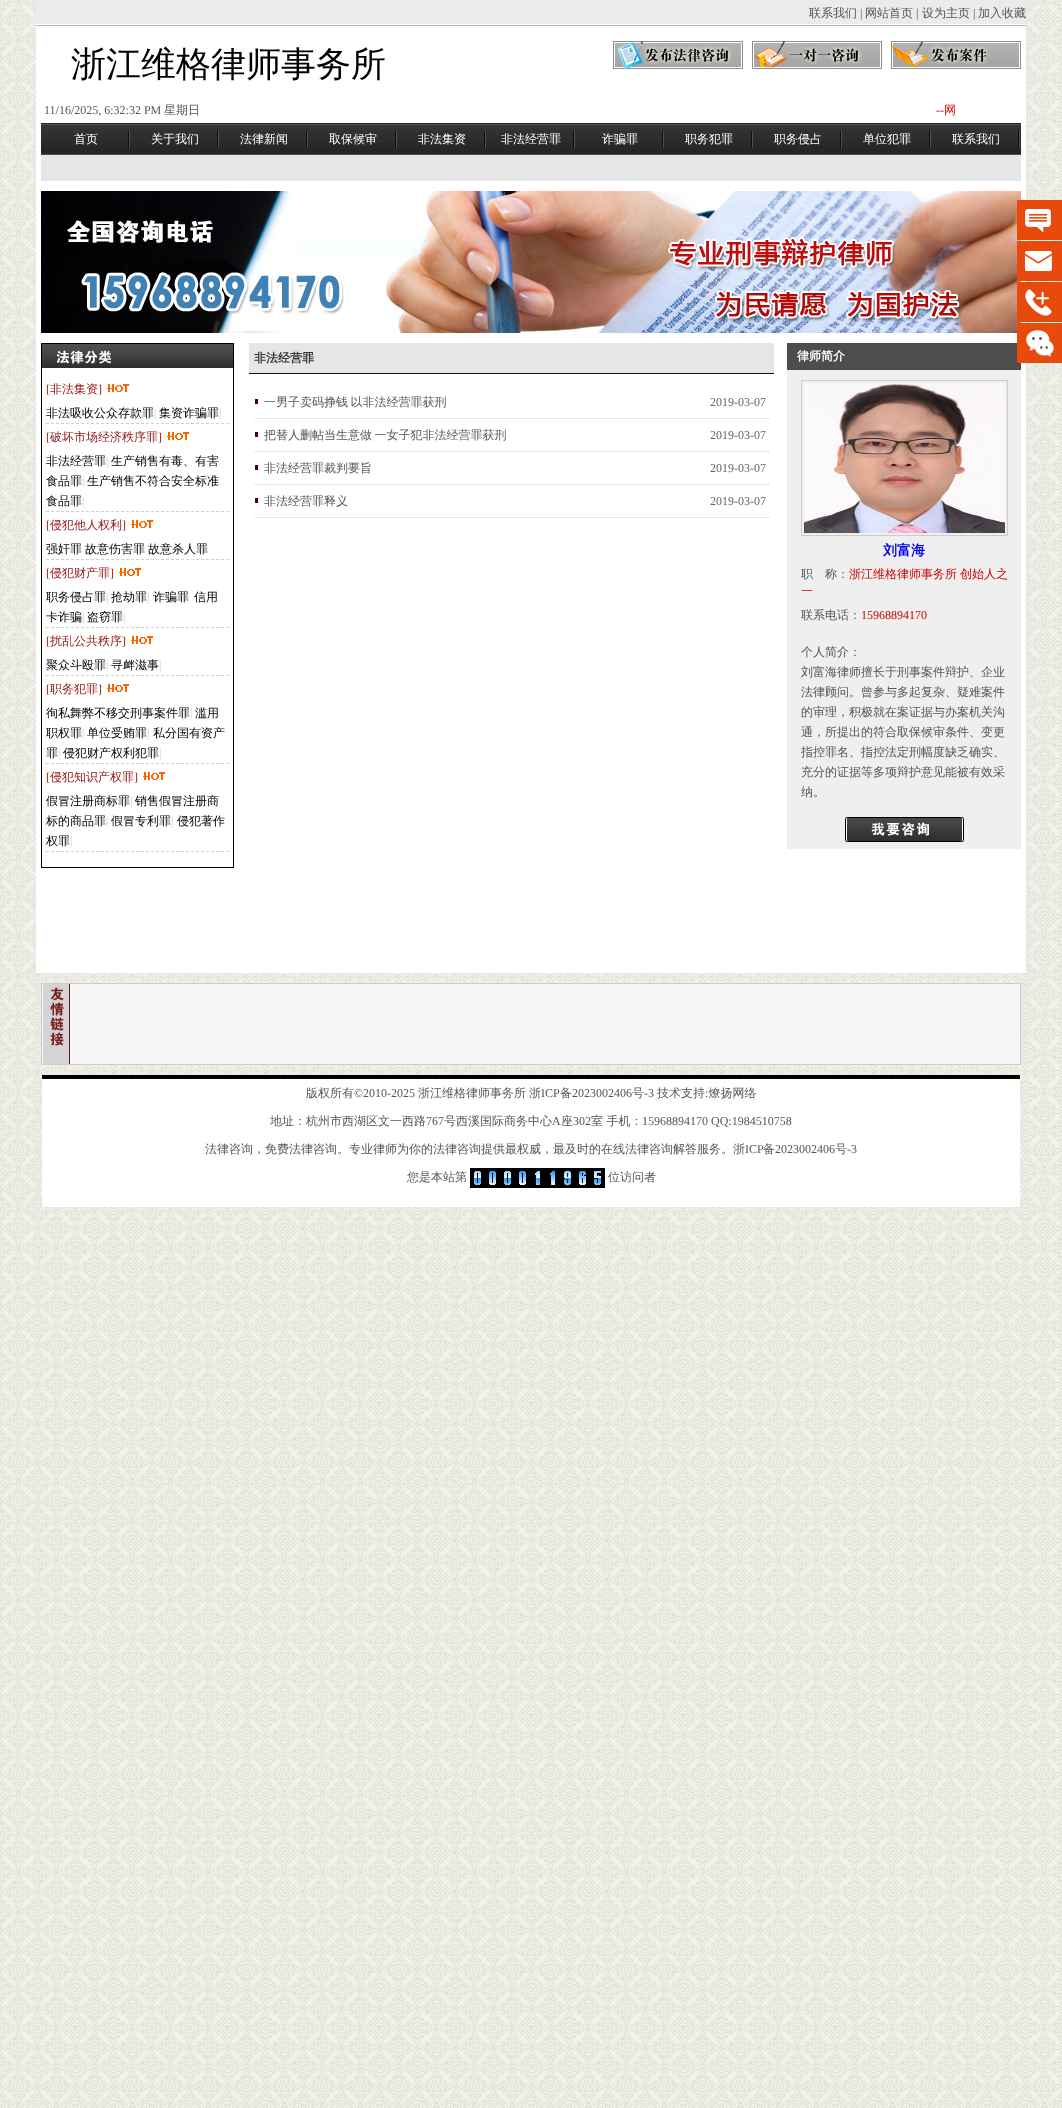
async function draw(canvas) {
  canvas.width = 1062;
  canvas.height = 2108;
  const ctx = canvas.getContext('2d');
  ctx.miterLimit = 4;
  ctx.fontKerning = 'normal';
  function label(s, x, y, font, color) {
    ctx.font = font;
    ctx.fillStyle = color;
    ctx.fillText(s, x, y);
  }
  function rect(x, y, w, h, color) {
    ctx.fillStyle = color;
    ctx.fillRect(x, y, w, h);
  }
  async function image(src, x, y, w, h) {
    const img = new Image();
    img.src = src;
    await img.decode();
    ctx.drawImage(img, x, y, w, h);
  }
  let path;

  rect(0, 0, 1062, 2108, '#fff');
  await image('assets/img1.png', 0, 0, 1062, 2108);
  await image('assets/img2.png', 36, 0, 990, 26);
  label('联系我们', 809, 17, '500 12px WenQuanYi Zen Hei', '#555');
  label('|', 860, 17, '12px Liberation Serif', '#555');
  label('网站首页', 865, 17, '500 12px WenQuanYi Zen Hei', '#555');
  label('|', 916, 17, '12px Liberation Serif', '#555');
  label('设为主页', 922, 17, '500 12px WenQuanYi Zen Hei', '#555');
  label('|', 973, 17, '12px Liberation Serif', '#555');
  label('加入收藏', 978, 17, '500 12px WenQuanYi Zen Hei', '#555');
  rect(36, 26, 990, 947, '#fff');
  label('浙江维格律师事务所', 71, 76, '500 35px WenQuanYi Zen Hei', '#000');
  await image('assets/img3.png', 613, 41, 130, 28);
  await image('assets/img4.png', 752, 41, 130, 28);
  await image('assets/img5.png', 891, 41, 130, 28);
  label('11/16/2025, 6:32:32 PM', 44, 114, '12px Liberation Serif', '#555');
  label('星期日', 164, 114, '500 12px WenQuanYi Zen Hei', '#555');
  label('--', 936, 114, '12px Liberation Serif', '#d20808');
  label('网', 944, 114, '500 12px WenQuanYi Zen Hei', '#d20808');
  await image('assets/img6.png', 41, 123, 980, 58);
  await image('assets/img7.png', 128, 131, 2, 17);
  label('首页', 74, 143, '500 12px WenQuanYi Zen Hei', '#fff');
  await image('assets/img7.png', 217, 131, 2, 17);
  label('关于我们', 151, 143, '500 12px WenQuanYi Zen Hei', '#fff');
  await image('assets/img7.png', 306, 131, 2, 17);
  label('法律新闻', 240, 143, '500 12px WenQuanYi Zen Hei', '#fff');
  await image('assets/img7.png', 395, 131, 2, 17);
  label('取保候审', 329, 143, '500 12px WenQuanYi Zen Hei', '#fff');
  await image('assets/img7.png', 484, 131, 2, 17);
  label('非法集资', 418, 143, '500 12px WenQuanYi Zen Hei', '#fff');
  await image('assets/img7.png', 573, 131, 2, 17);
  label('非法经营罪', 501, 143, '500 12px WenQuanYi Zen Hei', '#fff');
  await image('assets/img7.png', 662, 131, 2, 17);
  label('诈骗罪', 602, 143, '500 12px WenQuanYi Zen Hei', '#fff');
  await image('assets/img7.png', 751, 131, 2, 17);
  label('职务犯罪', 685, 143, '500 12px WenQuanYi Zen Hei', '#fff');
  await image('assets/img7.png', 840, 131, 2, 17);
  label('职务侵占', 774, 143, '500 12px WenQuanYi Zen Hei', '#fff');
  await image('assets/img7.png', 929, 131, 2, 17);
  label('单位犯罪', 863, 143, '500 12px WenQuanYi Zen Hei', '#fff');
  await image('assets/img7.png', 1018, 131, 2, 17);
  label('联系我们', 952, 143, '500 12px WenQuanYi Zen Hei', '#fff');
  await image('assets/img8.png', 41, 191, 980, 142);
  await image('assets/img9.png', 41, 343, 193, 25);
  rect(233, 368, 1, 500, '#000');
  rect(41, 867, 193, 1, '#000');
  rect(41, 368, 1, 500, '#000');
  label('[', 46, 393, '12px Liberation Serif', '#8f1414');
  label('非法集资', 50, 393, '500 12px WenQuanYi Zen Hei', '#8f1414');
  label(']', 98, 393, '12px Liberation Serif', '#8f1414');
  await image('assets/img10.png', 107, 384, 22, 8);
  path = new Path2D('M46 423.5H229');
  ctx.strokeStyle = '#d2cfcf';
  ctx.setLineDash([3, 2]);
  ctx.stroke(path);
  label('非法吸收公众存款罪', 46, 417, '500 12px WenQuanYi Zen Hei', '#000');
  label('|', 154, 417, '12px Liberation Serif', '#ccc');
  label('集资诈骗罪', 159, 417, '500 12px WenQuanYi Zen Hei', '#000');
  label('|', 219, 417, '12px Liberation Serif', '#ccc');
  label('[', 46, 441, '12px Liberation Serif', '#8f1414');
  label('破坏市场经济秩序罪', 50, 441, '500 12px WenQuanYi Zen Hei', '#8f1414');
  label(']', 158, 441, '12px Liberation Serif', '#8f1414');
  await image('assets/img10.png', 167, 432, 22, 8);
  path = new Path2D('M46 511.5H229');
  ctx.stroke(path);
  label('非法经营罪', 46, 465, '500 12px WenQuanYi Zen Hei', '#000');
  label('|', 106, 465, '12px Liberation Serif', '#ccc');
  label('生产销售有毒、有害', 111, 465, '500 12px WenQuanYi Zen Hei', '#000');
  label('食品罪', 46, 485, '500 12px WenQuanYi Zen Hei', '#000');
  label('|', 82, 485, '12px Liberation Serif', '#ccc');
  label('生产销售不符合安全标准', 87, 485, '500 12px WenQuanYi Zen Hei', '#000');
  label('食品罪', 46, 505, '500 12px WenQuanYi Zen Hei', '#000');
  label('|', 82, 505, '12px Liberation Serif', '#ccc');
  label('[', 46, 529, '12px Liberation Serif', '#8f1414');
  label('侵犯他人权利', 50, 529, '500 12px WenQuanYi Zen Hei', '#8f1414');
  label(']', 122, 529, '12px Liberation Serif', '#8f1414');
  await image('assets/img10.png', 131, 520, 22, 8);
  path = new Path2D('M46 559.5H229');
  ctx.stroke(path);
  label('强奸罪', 46, 553, '500 12px WenQuanYi Zen Hei', '#000');
  label('故意伤害罪', 85, 553, '500 12px WenQuanYi Zen Hei', '#000');
  label('故意杀人罪', 148, 553, '500 12px WenQuanYi Zen Hei', '#000');
  label('[', 46, 577, '12px Liberation Serif', '#8f1414');
  label('侵犯财产罪', 50, 577, '500 12px WenQuanYi Zen Hei', '#8f1414');
  label(']', 110, 577, '12px Liberation Serif', '#8f1414');
  await image('assets/img10.png', 119, 568, 22, 8);
  path = new Path2D('M46 627.5H229');
  ctx.stroke(path);
  label('职务侵占罪', 46, 601, '500 12px WenQuanYi Zen Hei', '#000');
  label('|', 106, 601, '12px Liberation Serif', '#ccc');
  label('抢劫罪', 111, 601, '500 12px WenQuanYi Zen Hei', '#000');
  label('|', 147, 601, '12px Liberation Serif', '#ccc');
  label('诈骗罪', 153, 601, '500 12px WenQuanYi Zen Hei', '#000');
  label('信用', 194, 601, '500 12px WenQuanYi Zen Hei', '#000');
  label('卡诈骗', 46, 621, '500 12px WenQuanYi Zen Hei', '#000');
  label('|', 82, 621, '12px Liberation Serif', '#ccc');
  label('盗窃罪', 87, 621, '500 12px WenQuanYi Zen Hei', '#000');
  label('|', 123, 621, '12px Liberation Serif', '#ccc');
  label('[', 46, 645, '12px Liberation Serif', '#8f1414');
  label('扰乱公共秩序', 50, 645, '500 12px WenQuanYi Zen Hei', '#8f1414');
  label(']', 122, 645, '12px Liberation Serif', '#8f1414');
  await image('assets/img10.png', 131, 636, 22, 8);
  path = new Path2D('M46 675.5H229');
  ctx.stroke(path);
  label('聚众斗殴罪', 46, 669, '500 12px WenQuanYi Zen Hei', '#000');
  label('|', 106, 669, '12px Liberation Serif', '#ccc');
  label('寻衅滋事', 111, 669, '500 12px WenQuanYi Zen Hei', '#000');
  label('|', 159, 669, '12px Liberation Serif', '#ccc');
  label('[', 46, 693, '12px Liberation Serif', '#8f1414');
  label('职务犯罪', 50, 693, '500 12px WenQuanYi Zen Hei', '#8f1414');
  label(']', 98, 693, '12px Liberation Serif', '#8f1414');
  await image('assets/img10.png', 107, 684, 22, 8);
  path = new Path2D('M46 763.5H229');
  ctx.stroke(path);
  label('徇私舞弊不移交刑事案件罪', 46, 717, '500 12px WenQuanYi Zen Hei', '#000');
  label('|', 190, 717, '12px Liberation Serif', '#ccc');
  label('滥用', 195, 717, '500 12px WenQuanYi Zen Hei', '#000');
  label('职权罪', 46, 737, '500 12px WenQuanYi Zen Hei', '#000');
  label('|', 82, 737, '12px Liberation Serif', '#ccc');
  label('单位受贿罪', 87, 737, '500 12px WenQuanYi Zen Hei', '#000');
  label('|', 147, 737, '12px Liberation Serif', '#ccc');
  label('私分国有资产', 153, 737, '500 12px WenQuanYi Zen Hei', '#000');
  label('罪', 46, 757, '500 12px WenQuanYi Zen Hei', '#000');
  label('|', 58, 757, '12px Liberation Serif', '#ccc');
  label('侵犯财产权利犯罪', 63, 757, '500 12px WenQuanYi Zen Hei', '#000');
  label('|', 159, 757, '12px Liberation Serif', '#ccc');
  label('[', 46, 781, '12px Liberation Serif', '#8f1414');
  label('侵犯知识产权罪', 50, 781, '500 12px WenQuanYi Zen Hei', '#8f1414');
  label(']', 134, 781, '12px Liberation Serif', '#8f1414');
  await image('assets/img10.png', 143, 772, 22, 8);
  path = new Path2D('M46 851.5H229');
  ctx.stroke(path);
  label('假冒注册商标罪', 46, 805, '500 12px WenQuanYi Zen Hei', '#000');
  label('|', 130, 805, '12px Liberation Serif', '#ccc');
  label('销售假冒注册商', 135, 805, '500 12px WenQuanYi Zen Hei', '#000');
  label('标的商品罪', 46, 825, '500 12px WenQuanYi Zen Hei', '#000');
  label('|', 106, 825, '12px Liberation Serif', '#ccc');
  label('假冒专利罪', 111, 825, '500 12px WenQuanYi Zen Hei', '#000');
  label('|', 171, 825, '12px Liberation Serif', '#ccc');
  label('侵犯著作', 177, 825, '500 12px WenQuanYi Zen Hei', '#000');
  label('权罪', 46, 845, '500 12px WenQuanYi Zen Hei', '#000');
  label('|', 70, 845, '12px Liberation Serif', '#ccc');
  rect(249, 343, 525, 30, '#e6e6e6');
  rect(249, 373, 525, 1, '#131313');
  label('非法经营罪', 254, 362, 'bold 12px WenQuanYi Zen Hei', '#333');
  rect(255, 399, 3, 5, '#4a0000');
  path = new Path2D('M254 418.5H769');
  ctx.strokeStyle = '#ccc';
  ctx.setLineDash([1, 1]);
  ctx.stroke(path);
  ctx.wordSpacing = '-1px';
  label('一男子卖码挣钱 以非法经营罪获刑', 264, 406, '500 12px WenQuanYi Zen Hei', '#555');
  ctx.wordSpacing = '0px';
  label('2019-03-07', 710, 406, '12px Liberation Serif', '#666');
  rect(255, 432, 3, 5, '#4a0000');
  path = new Path2D('M254 451.5H769');
  ctx.stroke(path);
  ctx.wordSpacing = '-1px';
  label('把替人删帖当生意做 一女子犯非法经营罪获刑', 264, 439, '500 12px WenQuanYi Zen Hei', '#555');
  ctx.wordSpacing = '0px';
  label('2019-03-07', 710, 439, '12px Liberation Serif', '#666');
  rect(255, 465, 3, 5, '#4a0000');
  path = new Path2D('M254 484.5H769');
  ctx.stroke(path);
  label('非法经营罪裁判要旨', 264, 472, '500 12px WenQuanYi Zen Hei', '#555');
  label('2019-03-07', 710, 472, '12px Liberation Serif', '#666');
  rect(255, 498, 3, 5, '#4a0000');
  path = new Path2D('M254 517.5H769');
  ctx.stroke(path);
  label('非法经营罪释义', 264, 505, '500 12px WenQuanYi Zen Hei', '#555');
  label('2019-03-07', 710, 505, '12px Liberation Serif', '#666');
  rect(787, 370, 234, 479, '#efefef');
  rect(787, 343, 234, 27, '#4d4d4d');
  label('律师简介', 797, 360, 'bold 12px WenQuanYi Zen Hei', '#fff');
  ctx.setLineDash([]);
  ctx.strokeRect(801.5, 380.5, 206, 155);
  await image('assets/img11.png', 804, 383, 201, 150);
  label('刘富海', 883, 555, 'bold 14px WenQuanYi Zen Hei', '#00e');
  label('职', 801, 578, '500 12px WenQuanYi Zen Hei', '#555');
  label('称：', 825, 578, '500 12px WenQuanYi Zen Hei', '#555');
  label('浙江维格律师事务所', 849, 578, '500 12px WenQuanYi Zen Hei', '#c00');
  label('创始人之', 960, 578, '500 12px WenQuanYi Zen Hei', '#c00');
  label('一', 801, 595, '500 12px WenQuanYi Zen Hei', '#c00');
  label('联系电话：', 801, 619, '500 12px WenQuanYi Zen Hei', '#555');
  label('15968894170', 861, 619, '12px Liberation Serif', '#c00');
  label('个人简介：', 801, 656, '500 12px WenQuanYi Zen Hei', '#555');
  label('刘富海律师擅长于刑事案件辩护、企业', 801, 676, '500 12px WenQuanYi Zen Hei', '#555');
  label('法律顾问。曾参与多起复杂、疑难案件', 801, 696, '500 12px WenQuanYi Zen Hei', '#555');
  label('的审理，积极就在案证据与办案机关沟', 801, 716, '500 12px WenQuanYi Zen Hei', '#555');
  label('通，所提出的符合取保候审条件、变更', 801, 736, '500 12px WenQuanYi Zen Hei', '#555');
  label('指控罪名、指控法定刑幅度缺乏确实、', 801, 756, '500 12px WenQuanYi Zen Hei', '#555');
  label('充分的证据等多项辩护意见能被有效采', 801, 776, '500 12px WenQuanYi Zen Hei', '#555');
  label('纳。', 801, 796, '500 12px WenQuanYi Zen Hei', '#555');
  await image('assets/img12.png', 845, 817, 119, 25);
  rect(1017, 200, 45, 40, '#e8490d');
  await image('assets/img13.png', 1020, 209, 31, 23);
  rect(1017, 241, 45, 40, '#e8490d');
  await image('assets/img14.png', 1021, 248, 31, 23);
  rect(1017, 282, 45, 40, '#e8490d');
  await image('assets/img15.png', 1025, 289, 27, 29);
  rect(1017, 323, 45, 40, '#e8490d');
  await image('assets/img16.png', 1026, 328, 29, 31);
  ctx.fillStyle = '#f7f6f6';
  ctx.beginPath();
  ctx.rect(41.5, 983.5, 979, 81);
  ctx.fill();
  ctx.stroke();
  await image('assets/img17.png', 43, 984, 27, 80);
  rect(42, 1079, 978, 128, '#fff');
  rect(42, 1075, 978, 4, '#000');
  label('版权所有', 306, 1097, '500 12px WenQuanYi Zen Hei', '#555');
  label('©2010-2025', 354, 1097, '12px Liberation Serif', '#555');
  label('浙江维格律师事务所', 418, 1097, '500 12px WenQuanYi Zen Hei', '#555');
  label('浙', 529, 1097, '500 12px WenQuanYi Zen Hei', '#555');
  label('ICP', 541, 1097, '12px Liberation Serif', '#555');
  label('备', 560, 1097, '500 12px WenQuanYi Zen Hei', '#555');
  label('2023002406', 572, 1097, '12px Liberation Serif', '#555');
  label('号', 632, 1097, '500 12px WenQuanYi Zen Hei', '#555');
  label('-3', 644, 1097, '12px Liberation Serif', '#555');
  label('技术支持 燎扬网络', 657, 1097, '500 12px WenQuanYi Zen Hei', '#555');
  label(':', 705, 1097, '12px Liberation Serif', '#555');
  label('地址：杭州市西湖区文一西路', 270, 1125, '500 12px WenQuanYi Zen Hei', '#555');
  label('767', 426, 1125, '12px Liberation Serif', '#555');
  label('号西溪国际商务中心', 444, 1125, '500 12px WenQuanYi Zen Hei', '#555');
  label('A', 552, 1125, '12px Liberation Serif', '#555');
  label('座', 561, 1125, '500 12px WenQuanYi Zen Hei', '#555');
  label('302', 573, 1125, '12px Liberation Serif', '#555');
  label('室 手机：', 591, 1125, '500 12px WenQuanYi Zen Hei', '#555');
  label('15968894170 QQ:1984510758', 642, 1125, '12px Liberation Serif', '#555');
  label('法律咨询，免费法律咨询。专业律师为你的法律咨询提供最权威，最及时的在线法律咨询解答服务。浙', 205, 1153, '500 12px WenQuanYi Zen Hei', '#555');
  label('ICP', 745, 1153, '12px Liberation Serif', '#555');
  label('备', 763, 1153, '500 12px WenQuanYi Zen Hei', '#555');
  label('2023002406', 775, 1153, '12px Liberation Serif', '#555');
  label('号', 835, 1153, '500 12px WenQuanYi Zen Hei', '#555');
  label('-3', 847, 1153, '12px Liberation Serif', '#555');
  label('您是本站第', 407, 1181, '500 12px WenQuanYi Zen Hei', '#555');
  await image('assets/img18.png', 470, 1168, 15, 20);
  await image('assets/img19.png', 485, 1168, 15, 20);
  await image('assets/img18.png', 500, 1168, 15, 20);
  await image('assets/img19.png', 515, 1168, 15, 20);
  await image('assets/img20.png', 530, 1168, 15, 20);
  await image('assets/img21.png', 545, 1168, 15, 20);
  await image('assets/img22.png', 560, 1168, 15, 20);
  await image('assets/img23.png', 575, 1168, 15, 20);
  await image('assets/img24.png', 590, 1168, 15, 20);
  label('位访问者', 608, 1181, '500 12px WenQuanYi Zen Hei', '#555');
}

draw(document.querySelector('canvas'));
